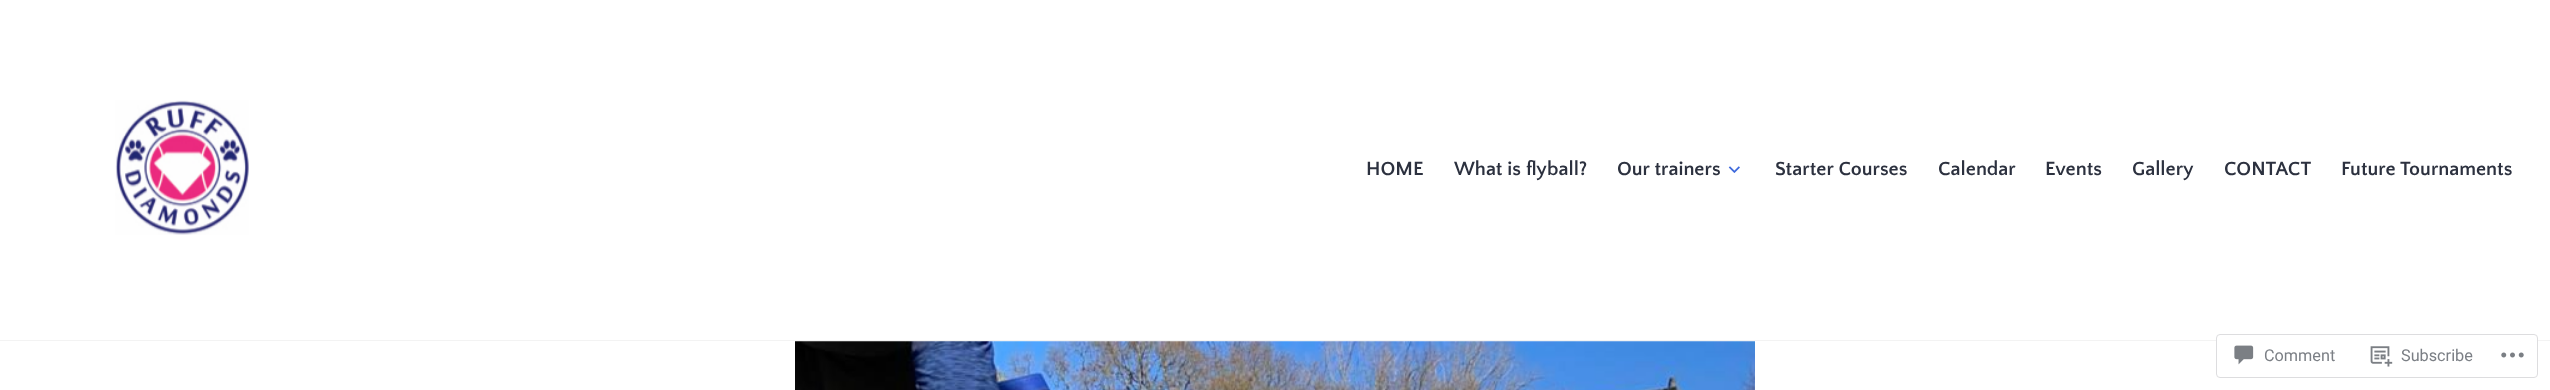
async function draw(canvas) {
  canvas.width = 2550;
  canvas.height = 390;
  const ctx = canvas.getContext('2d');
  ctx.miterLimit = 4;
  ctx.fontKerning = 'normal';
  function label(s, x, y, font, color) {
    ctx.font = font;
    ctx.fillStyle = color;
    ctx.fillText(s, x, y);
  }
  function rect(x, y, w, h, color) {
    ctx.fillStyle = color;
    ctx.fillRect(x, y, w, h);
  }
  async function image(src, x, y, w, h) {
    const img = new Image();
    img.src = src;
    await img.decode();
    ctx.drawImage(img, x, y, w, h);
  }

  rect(0, 0, 2550, 390, '#fff');
  rect(0, 340, 2550, 1, '#f3f3f3');
  await image('assets/img1.png', 115, 100, 134, 135);
  label('HOME', 1366, 175, 'bold 20px Quattrocento Sans', '#2c313f');
  label('What is flyball?', 1454, 175, 'bold 20px Quattrocento Sans', '#2c313f');
  label('Our trainers', 1617, 175, 'bold 20px Quattrocento Sans', '#2c313f');
  await image('assets/img2.png', 1728, 166, 12, 7);
  label('Starter Courses', 1775, 175, 'bold 20px Quattrocento Sans', '#2c313f');
  label('Calendar', 1938, 175, 'bold 20px Quattrocento Sans', '#2c313f');
  label('Events', 2045, 175, 'bold 20px Quattrocento Sans', '#2c313f');
  label('Gallery', 2132, 175, 'bold 20px Quattrocento Sans', '#2c313f');
  label('CONTACT', 2224, 175, 'bold 20px Quattrocento Sans', '#2c313f');
  label('Future Tournaments', 2341, 175, 'bold 20px Quattrocento Sans', '#2c313f');
  await image('assets/img3.png', 795, 341, 960, 49);
  ctx.fillStyle = '#fffffffa';
  ctx.beginPath();
  ctx.roundRect(2216.5, 334.5, 321, 43, 3.5);
  ctx.fill();
  ctx.strokeStyle = '#dddddf';
  ctx.stroke();
  await image('assets/img4.png', 2234, 345, 20, 20);
  label('Comment', 2264, 361, '16.25px Roboto', '#7b7f85');
  await image('assets/img5.png', 2370, 346, 23, 21);
  label('Subscribe', 2401, 361, '16.25px Roboto', '#7b7f85');
  await image('assets/img6.png', 2501, 352, 23, 6);
}

draw(document.querySelector('canvas'));
